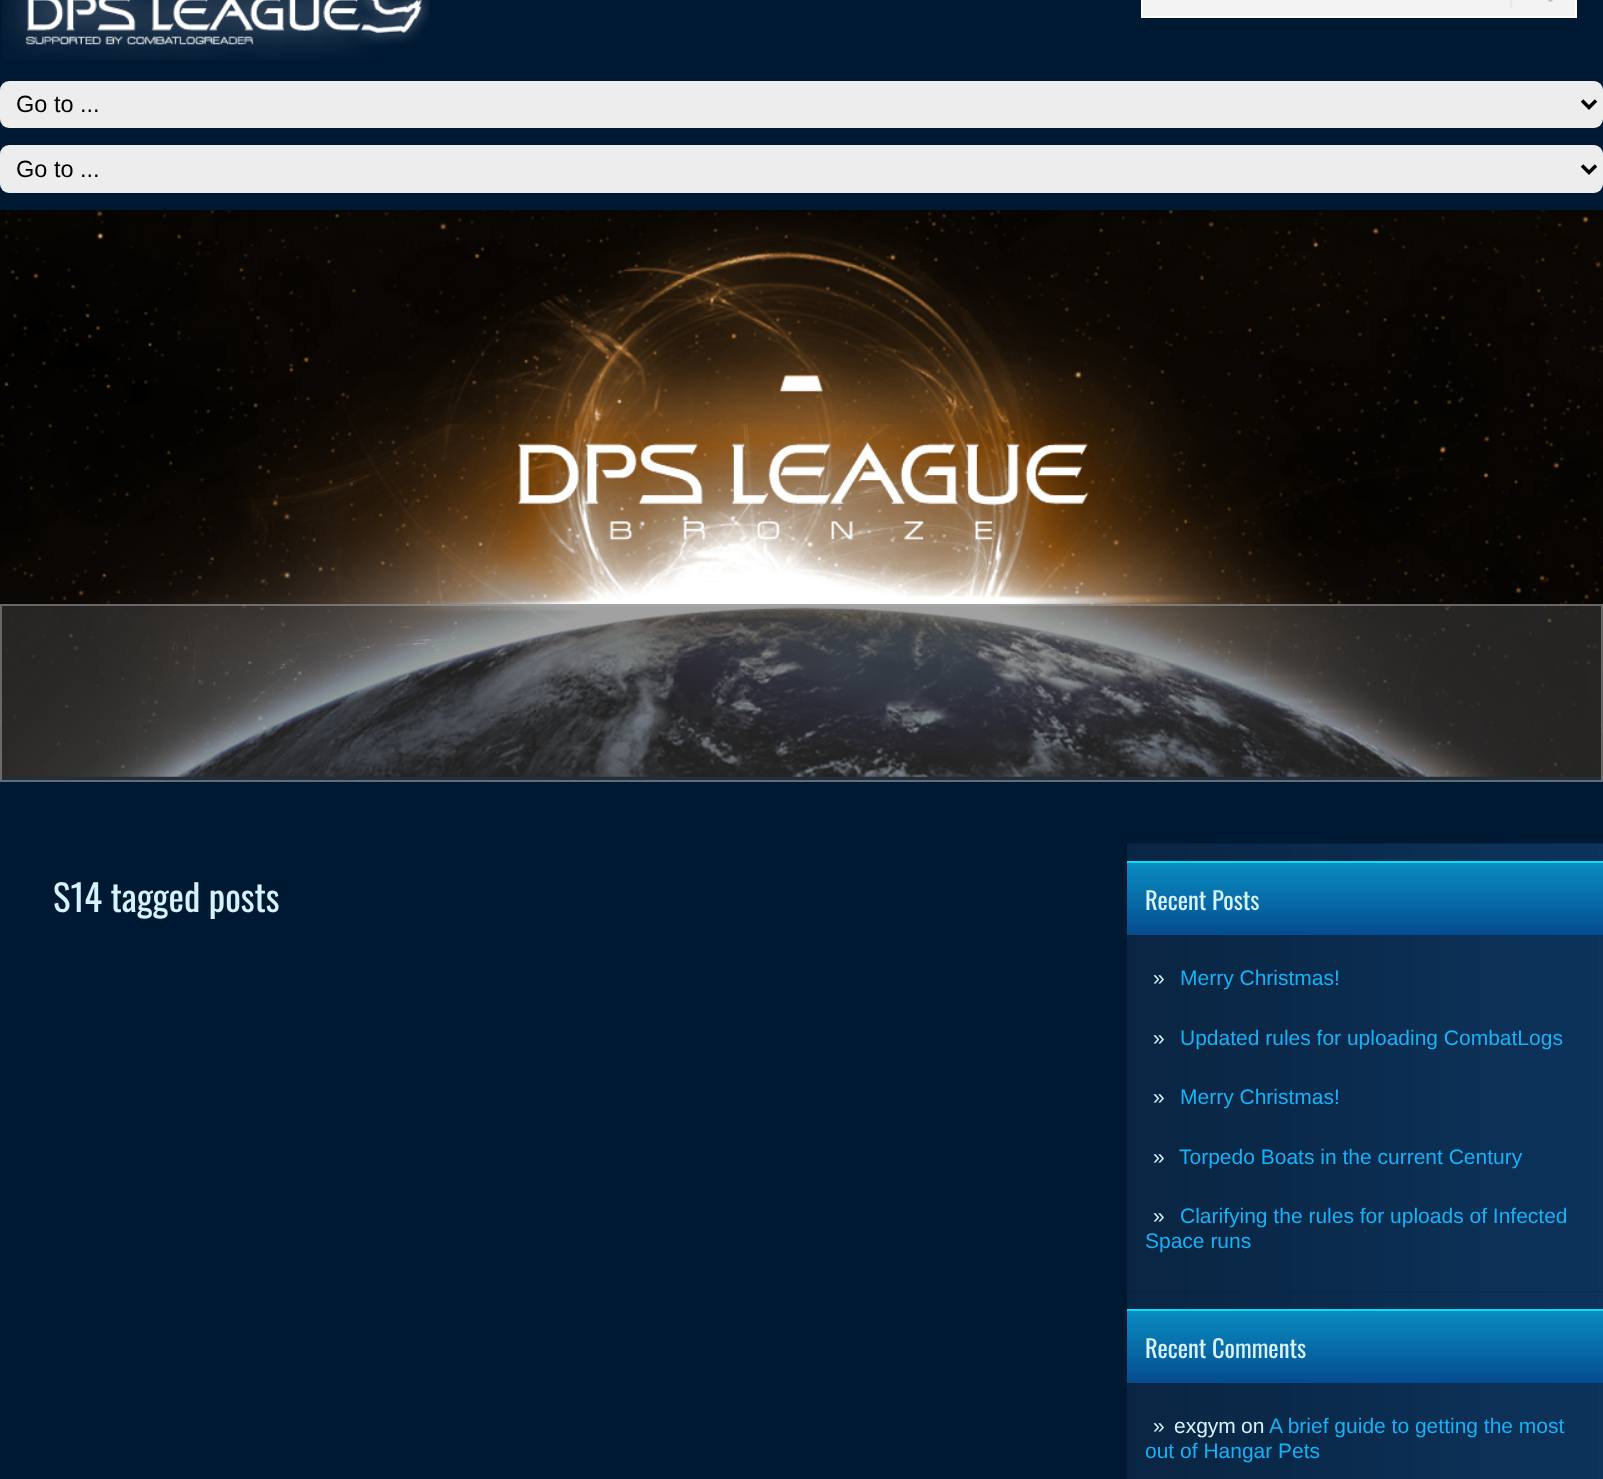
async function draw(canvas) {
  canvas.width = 1603;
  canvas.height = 1479;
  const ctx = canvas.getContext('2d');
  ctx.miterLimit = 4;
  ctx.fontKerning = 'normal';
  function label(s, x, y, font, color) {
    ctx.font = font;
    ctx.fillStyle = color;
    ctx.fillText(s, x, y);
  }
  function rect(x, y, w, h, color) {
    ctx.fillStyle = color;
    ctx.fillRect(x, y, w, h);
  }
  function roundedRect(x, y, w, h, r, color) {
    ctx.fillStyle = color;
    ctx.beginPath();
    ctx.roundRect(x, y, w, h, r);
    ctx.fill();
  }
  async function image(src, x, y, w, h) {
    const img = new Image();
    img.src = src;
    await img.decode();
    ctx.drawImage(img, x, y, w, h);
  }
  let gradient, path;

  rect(0, 0, 1603, 1479, '#001933');
  await image('assets/img1.png', 2, 0, 428, 60);
  ctx.fillStyle = '#f3f3f3';
  ctx.beginPath();
  ctx.rect(1142, -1, 434, 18);
  ctx.fill();
  ctx.strokeStyle = '#fff';
  ctx.lineWidth = 2;
  ctx.stroke();
  await image('assets/img2.png', 1510, 0, 43, 9);
  roundedRect(0, 81, 1603, 47, 9, '#ededed');
  path = new Path2D('M1582 100.5L1589 107.5L1596 100.5');
  ctx.strokeStyle = '#000';
  ctx.lineWidth = 3.5;
  ctx.stroke(path);
  label('Go to ...', 16, 112, '23.5px Liberation Sans', '#000');
  roundedRect(0, 145, 1603, 48, 9, '#ededed');
  path = new Path2D('M1582 165.5L1589 172.5L1596 165.5');
  ctx.stroke(path);
  label('Go to ...', 16, 177, '23.5px Liberation Sans', '#000');
  await image('assets/img3.png', 0, 210, 1603, 567);
  rect(0, 604, 1603, 178, '#44444480');
  ctx.strokeStyle = '#aaaaaa80';
  ctx.lineWidth = 2;
  ctx.strokeRect(1, 605, 1601, 176);
  label('S14 tagged posts', 53, 912, '36.75px Oswald', '#d7f2ff');
  await image('assets/img4.png', 1127, 843, 476, 449);
  gradient = ctx.createLinearGradient(1127, 935, 1127, 863);
  gradient.addColorStop(0, '#054c8f');
  gradient.addColorStop(1, '#098dc1');
  ctx.fillStyle = gradient;
  ctx.fillRect(1127, 863, 476, 72);
  rect(1127, 861, 476, 2, '#0fdded');
  label('Recent Posts', 1145, 910, '24.5px Oswald', '#d7f2ff');
  label('»', 1153, 985, '21px Liberation Sans', '#d7f2ff');
  label('Merry Christmas!', 1180, 985, '21px Liberation Sans', '#19b1f6');
  label('»', 1153, 1045, '21px Liberation Sans', '#d7f2ff');
  label('Updated rules for uploading CombatLogs', 1180, 1045, '21px Liberation Sans', '#19b1f6');
  label('»', 1153, 1104, '21px Liberation Sans', '#d7f2ff');
  label('Merry Christmas!', 1180, 1104, '21px Liberation Sans', '#19b1f6');
  label('»', 1153, 1164, '21px Liberation Sans', '#d7f2ff');
  label('Torpedo Boats in the current Century', 1179, 1164, '21px Liberation Sans', '#19b1f6');
  label('»', 1153, 1223, '21px Liberation Sans', '#d7f2ff');
  label('Clarifying the rules for uploads of Infected', 1180, 1223, '21px Liberation Sans', '#19b1f6');
  label('Space runs', 1145, 1248, '21px Liberation Sans', '#19b1f6');
  await image('assets/img5.png', 1127, 1291, 476, 188);
  gradient = ctx.createLinearGradient(1127, 1383, 1127, 1311);
  gradient.addColorStop(0, '#054c8f');
  gradient.addColorStop(1, '#098dc1');
  ctx.fillStyle = gradient;
  ctx.fillRect(1127, 1311, 476, 72);
  rect(1127, 1309, 476, 2, '#0fdded');
  label('Recent Comments', 1145, 1358, '24.5px Oswald', '#d7f2ff');
  label('»', 1153, 1433, '21px Liberation Sans', '#d7f2ff');
  label('exgym', 1174, 1433, '21px Liberation Sans', '#d7f2ff');
  label('on', 1241, 1433, '21px Liberation Sans', '#d7f2ff');
  label('A brief guide to getting the most', 1269, 1433, '21px Liberation Sans', '#19b1f6');
  label('out of Hangar Pets', 1145, 1458, '21px Liberation Sans', '#19b1f6');
}

draw(document.querySelector('canvas'));
